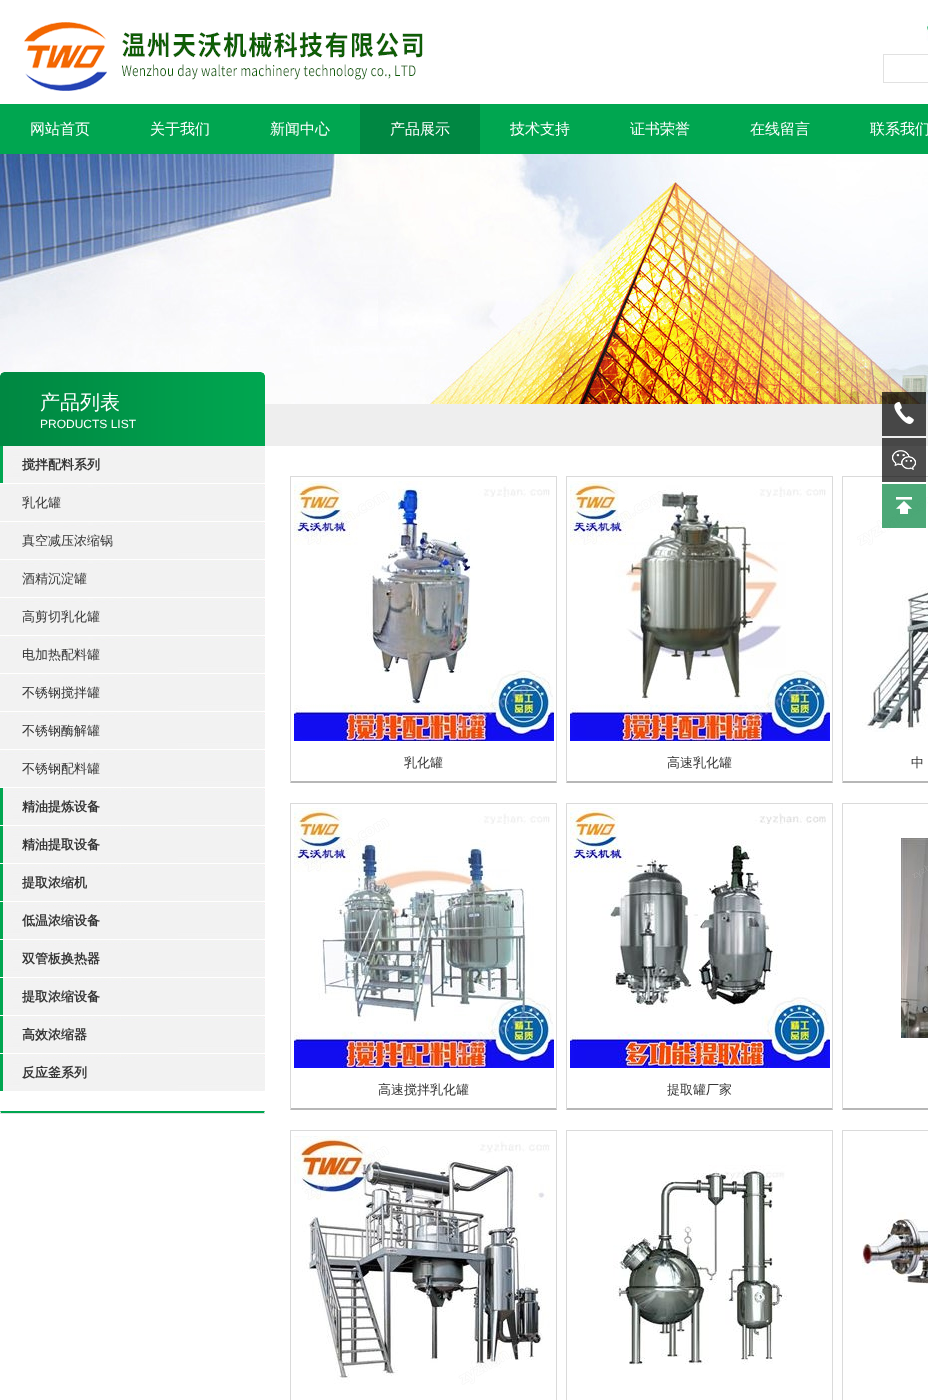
async function draw(canvas) {
  canvas.width = 928;
  canvas.height = 1400;
  const ctx = canvas.getContext('2d');
  ctx.miterLimit = 4;
  ctx.fontKerning = 'normal';
  function label(s, x, y, font, color) {
    ctx.font = font;
    ctx.fillStyle = color;
    ctx.fillText(s, x, y);
  }
  function rect(x, y, w, h, color) {
    ctx.fillStyle = color;
    ctx.fillRect(x, y, w, h);
  }
  async function image(src, x, y, w, h) {
    const img = new Image();
    img.src = src;
    await img.decode();
    ctx.drawImage(img, x, y, w, h);
  }
  let path;

  rect(0, 0, 928, 1400, '#fff');
  rect(882, 446, 44, 36, '#4d4d4d');
  rect(265, 404, 663, 42, '#eee');
  rect(882, 438, 44, 8, '#474747');
  await image('assets/img1.png', 24, 22, 399, 69);
  await image('assets/img2.png', 926, 22, 2, 19);
  rect(883, 54, 45, 1, '#e1e1e1');
  rect(883, 82, 45, 1, '#e1e1e1');
  rect(883, 54, 1, 29, '#e1e1e1');
  rect(0, 104, 928, 50, '#00a650');
  label('网站首页', 30, 134, '500 15px WenQuanYi Zen Hei', '#fff');
  label('关于我们', 150, 134, '500 15px WenQuanYi Zen Hei', '#fff');
  label('新闻中心', 270, 134, '500 15px WenQuanYi Zen Hei', '#fff');
  rect(360, 104, 120, 50, '#008742');
  label('产品展示', 390, 134, '500 15px WenQuanYi Zen Hei', '#fff');
  label('技术支持', 510, 134, '500 15px WenQuanYi Zen Hei', '#fff');
  label('证书荣誉', 630, 134, '500 15px WenQuanYi Zen Hei', '#fff');
  label('在线留言', 750, 134, '500 15px WenQuanYi Zen Hei', '#fff');
  label('联系我们', 870, 134, '500 15px WenQuanYi Zen Hei', '#fff');
  await image('assets/img3.png', 0, 154, 928, 250);
  await image('assets/img4.png', 0, 372, 265, 74);
  label('产品列表', 40, 409, '500 20px WenQuanYi Zen Hei', '#fff');
  label('PRODUCTS LIST', 40, 428, '12px Liberation Sans', '#fff');
  await image('assets/img5.png', 0, 446, 265, 37);
  label('搅拌配料系列', 22, 469, 'bold 13px WenQuanYi Zen Hei', '#353535');
  await image('assets/img6.png', 0, 484, 265, 37);
  label('乳化罐', 22, 507, '500 13px WenQuanYi Zen Hei', '#353535');
  await image('assets/img6.png', 0, 522, 265, 37);
  label('真空减压浓缩锅', 22, 545, '500 13px WenQuanYi Zen Hei', '#353535');
  await image('assets/img6.png', 0, 560, 265, 37);
  label('酒精沉淀罐', 22, 583, '500 13px WenQuanYi Zen Hei', '#353535');
  await image('assets/img6.png', 0, 598, 265, 37);
  label('高剪切乳化罐', 22, 621, '500 13px WenQuanYi Zen Hei', '#353535');
  await image('assets/img6.png', 0, 636, 265, 37);
  label('电加热配料罐', 22, 659, '500 13px WenQuanYi Zen Hei', '#353535');
  await image('assets/img6.png', 0, 674, 265, 37);
  label('不锈钢搅拌罐', 22, 697, '500 13px WenQuanYi Zen Hei', '#353535');
  await image('assets/img6.png', 0, 712, 265, 37);
  label('不锈钢酶解罐', 22, 735, '500 13px WenQuanYi Zen Hei', '#353535');
  await image('assets/img6.png', 0, 750, 265, 37);
  label('不锈钢配料罐', 22, 773, '500 13px WenQuanYi Zen Hei', '#353535');
  await image('assets/img5.png', 0, 788, 265, 37);
  label('精油提炼设备', 22, 811, 'bold 13px WenQuanYi Zen Hei', '#353535');
  await image('assets/img5.png', 0, 826, 265, 37);
  label('精油提取设备', 22, 849, 'bold 13px WenQuanYi Zen Hei', '#353535');
  await image('assets/img5.png', 0, 864, 265, 37);
  label('提取浓缩机', 22, 887, 'bold 13px WenQuanYi Zen Hei', '#353535');
  await image('assets/img5.png', 0, 902, 265, 37);
  label('低温浓缩设备', 22, 925, 'bold 13px WenQuanYi Zen Hei', '#353535');
  await image('assets/img5.png', 0, 940, 265, 37);
  label('双管板换热器', 22, 963, 'bold 13px WenQuanYi Zen Hei', '#353535');
  await image('assets/img5.png', 0, 978, 265, 37);
  label('提取浓缩设备', 22, 1001, 'bold 13px WenQuanYi Zen Hei', '#353535');
  await image('assets/img5.png', 0, 1016, 265, 37);
  label('高效浓缩器', 22, 1039, 'bold 13px WenQuanYi Zen Hei', '#353535');
  await image('assets/img5.png', 0, 1054, 265, 37);
  label('反应釜系列', 22, 1077, 'bold 13px WenQuanYi Zen Hei', '#353535');
  ctx.fillStyle = '#00a650';
  path = new Path2D('M0 1111H265L264 1113H1Z');
  ctx.fill(path);
  ctx.fillStyle = '#e4e4e4';
  path = new Path2D('M265 1111V1114L264 1113Z');
  ctx.fill(path);
  rect(0, 1113, 265, 1, '#e4e4e4');
  path = new Path2D('M0 1114V1111L1 1113Z');
  ctx.fill(path);
  rect(290, 476, 267, 1, '#dadada');
  path = new Path2D('M557 476V783L556 781V477Z');
  ctx.fill(path);
  ctx.fillStyle = '#b7b7b7';
  path = new Path2D('M557 783H290L291 781H556Z');
  ctx.fill(path);
  ctx.fillStyle = '#dadada';
  path = new Path2D('M290 783V476L291 477V781Z');
  ctx.fill(path);
  await image('assets/img7.png', 294, 481, 260, 260);
  label('乳化罐', 404, 767, '500 13px WenQuanYi Zen Hei', '#353535');
  rect(566, 476, 267, 1, '#dadada');
  path = new Path2D('M833 476V783L832 781V477Z');
  ctx.fill(path);
  ctx.fillStyle = '#b7b7b7';
  path = new Path2D('M833 783H566L567 781H832Z');
  ctx.fill(path);
  ctx.fillStyle = '#dadada';
  path = new Path2D('M566 783V476L567 477V781Z');
  ctx.fill(path);
  await image('assets/img8.png', 570, 481, 260, 260);
  label('高速乳化罐', 667, 767, '500 13px WenQuanYi Zen Hei', '#353535');
  rect(842, 476, 86, 1, '#dadada');
  rect(882, 476, 44, 1, '#414141');
  ctx.fillStyle = '#b7b7b7';
  path = new Path2D('M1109 783H842L843 781H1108Z');
  ctx.fill(path);
  ctx.fillStyle = '#dadada';
  path = new Path2D('M842 783V476L843 477V781Z');
  ctx.fill(path);
  await image('assets/img9.png', 857, 497, 71, 235);
  label('中', 911, 767, '500 13px WenQuanYi Zen Hei', '#353535');
  rect(290, 803, 267, 1, '#dadada');
  path = new Path2D('M557 803V1110L556 1108V804Z');
  ctx.fill(path);
  ctx.fillStyle = '#b7b7b7';
  path = new Path2D('M557 1110H290L291 1108H556Z');
  ctx.fill(path);
  ctx.fillStyle = '#dadada';
  path = new Path2D('M290 1110V803L291 804V1108Z');
  ctx.fill(path);
  await image('assets/img10.png', 294, 808, 260, 260);
  label('高速搅拌乳化罐', 378, 1094, '500 13px WenQuanYi Zen Hei', '#353535');
  rect(566, 803, 267, 1, '#dadada');
  path = new Path2D('M833 803V1110L832 1108V804Z');
  ctx.fill(path);
  ctx.fillStyle = '#b7b7b7';
  path = new Path2D('M833 1110H566L567 1108H832Z');
  ctx.fill(path);
  ctx.fillStyle = '#dadada';
  path = new Path2D('M566 1110V803L567 804V1108Z');
  ctx.fill(path);
  await image('assets/img11.png', 570, 808, 260, 260);
  label('提取罐厂家', 667, 1094, '500 13px WenQuanYi Zen Hei', '#353535');
  rect(842, 803, 86, 1, '#dadada');
  ctx.fillStyle = '#b7b7b7';
  path = new Path2D('M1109 1110H842L843 1108H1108Z');
  ctx.fill(path);
  ctx.fillStyle = '#dadada';
  path = new Path2D('M842 1110V803L843 804V1108Z');
  ctx.fill(path);
  await image('assets/img12.png', 901, 838, 27, 200);
  rect(290, 1130, 267, 1, '#dadada');
  path = new Path2D('M557 1130V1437L556 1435V1131Z');
  ctx.fill(path);
  path = new Path2D('M290 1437V1130L291 1131V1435Z');
  ctx.fill(path);
  await image('assets/img13.png', 294, 1136, 256, 249);
  rect(566, 1130, 267, 1, '#dadada');
  path = new Path2D('M833 1130V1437L832 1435V1131Z');
  ctx.fill(path);
  path = new Path2D('M566 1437V1130L567 1131V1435Z');
  ctx.fill(path);
  await image('assets/img14.png', 613, 1165, 174, 200);
  rect(842, 1130, 86, 1, '#dadada');
  path = new Path2D('M842 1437V1130L843 1131V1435Z');
  ctx.fill(path);
  await image('assets/img15.png', 862, 1212, 66, 73);
  rect(882, 392, 44, 44, '#000000b3');
  await image('assets/img16.png', 894, 402, 20, 22);
  await image('assets/img17.png', 892, 450, 24, 20);
  rect(882, 484, 44, 44, '#00833db3');
  await image('assets/img18.png', 896, 497, 16, 17);
}

draw(document.querySelector('canvas'));
